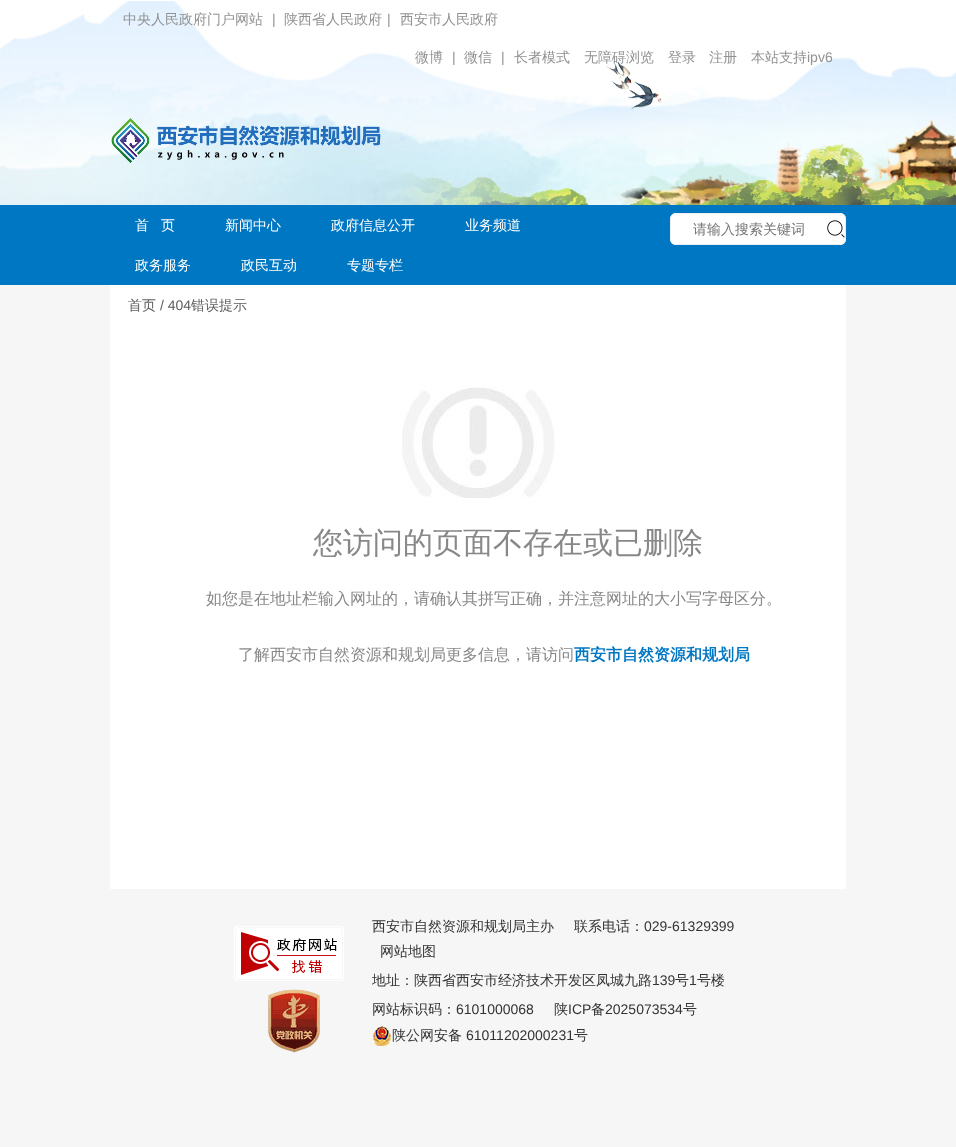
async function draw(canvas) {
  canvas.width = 956;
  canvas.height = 1147;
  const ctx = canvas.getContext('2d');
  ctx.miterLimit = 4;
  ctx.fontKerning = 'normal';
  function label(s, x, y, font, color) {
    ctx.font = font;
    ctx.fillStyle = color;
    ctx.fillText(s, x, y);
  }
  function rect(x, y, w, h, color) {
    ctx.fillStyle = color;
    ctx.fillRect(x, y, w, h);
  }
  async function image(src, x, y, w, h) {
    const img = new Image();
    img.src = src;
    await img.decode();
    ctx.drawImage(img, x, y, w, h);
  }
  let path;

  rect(0, 0, 956, 1147, '#f6f6f6');
  await image('assets/img1.png', 0, 0, 956, 205);
  label('中央人民政府门户网站', 123, 24, '500 14px WenQuanYi Zen Hei', '#929292');
  label('|', 272, 24, '14px Liberation Sans', '#929292');
  label('陕西省人民政府', 284, 24, '500 14px WenQuanYi Zen Hei', '#929292');
  label('|', 387, 24, '14px Liberation Sans', '#929292');
  label('西安市人民政府', 400, 24, '500 14px WenQuanYi Zen Hei', '#929292');
  label('微博', 415, 62, '500 14px WenQuanYi Zen Hei', '#929292');
  label('|', 452, 62, '14px Liberation Sans', '#929292');
  label('微信', 464, 62, '500 14px WenQuanYi Zen Hei', '#929292');
  label('|', 501, 62, '14px Liberation Sans', '#929292');
  label('长者模式', 514, 62, '500 14px WenQuanYi Zen Hei', '#929292');
  label('无障碍浏览', 584, 62, '500 14px WenQuanYi Zen Hei', '#929292');
  label('登录', 668, 62, '500 14px WenQuanYi Zen Hei', '#929292');
  label('注册', 709, 62, '500 14px WenQuanYi Zen Hei', '#929292');
  label('本站支持', 751, 62, '500 14px WenQuanYi Zen Hei', '#929292');
  label('ipv6', 807, 62, '14px Liberation Sans', '#929292');
  await image('assets/img2.png', 111, 118, 270, 45);
  rect(0, 205, 956, 80, '#0077c2');
  label('首', 135, 230, '500 14px WenQuanYi Zen Hei', '#fff');
  label('页', 161, 230, '500 14px WenQuanYi Zen Hei', '#fff');
  label('新闻中心', 225, 230, '500 14px WenQuanYi Zen Hei', '#fff');
  label('政府信息公开', 331, 230, '500 14px WenQuanYi Zen Hei', '#fff');
  label('业务频道', 465, 230, '500 14px WenQuanYi Zen Hei', '#fff');
  label('政务服务', 135, 270, '500 14px WenQuanYi Zen Hei', '#fff');
  label('政民互动', 241, 270, '500 14px WenQuanYi Zen Hei', '#fff');
  label('专题专栏', 347, 270, '500 14px WenQuanYi Zen Hei', '#fff');
  ctx.beginPath();
  ctx.roundRect(670, 213, 156, 32, [6, 0, 0, 6]);
  ctx.fill();
  ctx.fillStyle = '#eee';
  path = new Path2D('M676 213H826V245H676C673 245 670 242 670 239V219C670 216 673 213 676 213ZM676 214H826V244H676C673 244 671 242 671 239V219C671 216 673 214 676 214Z');
  ctx.fill(path, 'evenodd');
  label('请输入搜索关键词', 693, 234, '500 14px WenQuanYi Zen Hei', '#757575');
  ctx.fillStyle = '#fff';
  ctx.beginPath();
  ctx.roundRect(826, 213, 20, 32, [0, 6, 6, 0]);
  ctx.fill();
  await image('assets/img3.png', 827, 220, 18, 18);
  ctx.fillStyle = '#eee';
  path = new Path2D('M826 213H840C843.5 213 846 215.5 846 219V239C846 242.5 843.5 245 840 245H826ZM826 214H840C843 214 845 216 845 219V239C845 242 843 244 840 244H826Z');
  ctx.fill(path, 'evenodd');
  rect(110, 285, 736, 604, '#fff');
  label('首页', 128, 310, '500 14px WenQuanYi Zen Hei', '#5d5d5d');
  label('/ 404', 160, 310, '14px Liberation Sans', '#5d5d5d');
  label('错误提示', 191, 310, '500 14px WenQuanYi Zen Hei', '#5d5d5d');
  await image('assets/img4.png', 402, 387, 153, 111);
  label('您访问的页面不存在或已删除', 313, 553, '500 30px WenQuanYi Zen Hei', '#888');
  label('如您是在地址栏输入网址的，请确认其拼写正确，并注意网址的大小写字母区分。', 206, 604, '500 16px WenQuanYi Zen Hei', '#888');
  label('了解西安市自然资源和规划局更多信息，请访问', 238, 660, '500 16px WenQuanYi Zen Hei', '#888');
  label('西安市自然资源和规划局', 574, 660, 'bold 16px WenQuanYi Zen Hei', '#0077c2');
  await image('assets/img5.png', 234, 926, 110, 55);
  await image('assets/img6.png', 268, 989, 52, 64);
  label('西安市自然资源和规划局主办', 372, 931, '500 14px WenQuanYi Zen Hei', '#333');
  label('联系电话：', 574, 931, '500 14px WenQuanYi Zen Hei', '#333');
  label('029-61329399', 644, 931, '14px Liberation Sans', '#333');
  label('网站地图', 380, 956, '500 14px WenQuanYi Zen Hei', '#333');
  label('地址：陕西省西安市经济技术开发区凤城九路', 372, 985, '500 14px WenQuanYi Zen Hei', '#333');
  label('139', 652, 985, '14px Liberation Sans', '#333');
  label('号', 675, 985, '500 14px WenQuanYi Zen Hei', '#333');
  label('1', 689, 985, '14px Liberation Sans', '#333');
  label('号楼', 697, 985, '500 14px WenQuanYi Zen Hei', '#333');
  label('网站标识码：', 372, 1014, '500 14px WenQuanYi Zen Hei', '#333');
  label('6101000068', 456, 1014, '14px Liberation Sans', '#333');
  label('陕', 554, 1014, '500 14px WenQuanYi Zen Hei', '#333');
  label('ICP', 568, 1014, '14px Liberation Sans', '#333');
  label('备', 591, 1014, '500 14px WenQuanYi Zen Hei', '#333');
  label('2025073534', 605, 1014, '14px Liberation Sans', '#333');
  label('号', 683, 1014, '500 14px WenQuanYi Zen Hei', '#333');
  await image('assets/img7.png', 373, 1026, 18, 20);
  label('陕公网安备', 392, 1040, '500 14px WenQuanYi Zen Hei', '#333');
  label('61011202000231', 466, 1040, '14px Liberation Sans', '#333');
  label('号', 574, 1040, '500 14px WenQuanYi Zen Hei', '#333');
}

draw(document.querySelector('canvas'));
